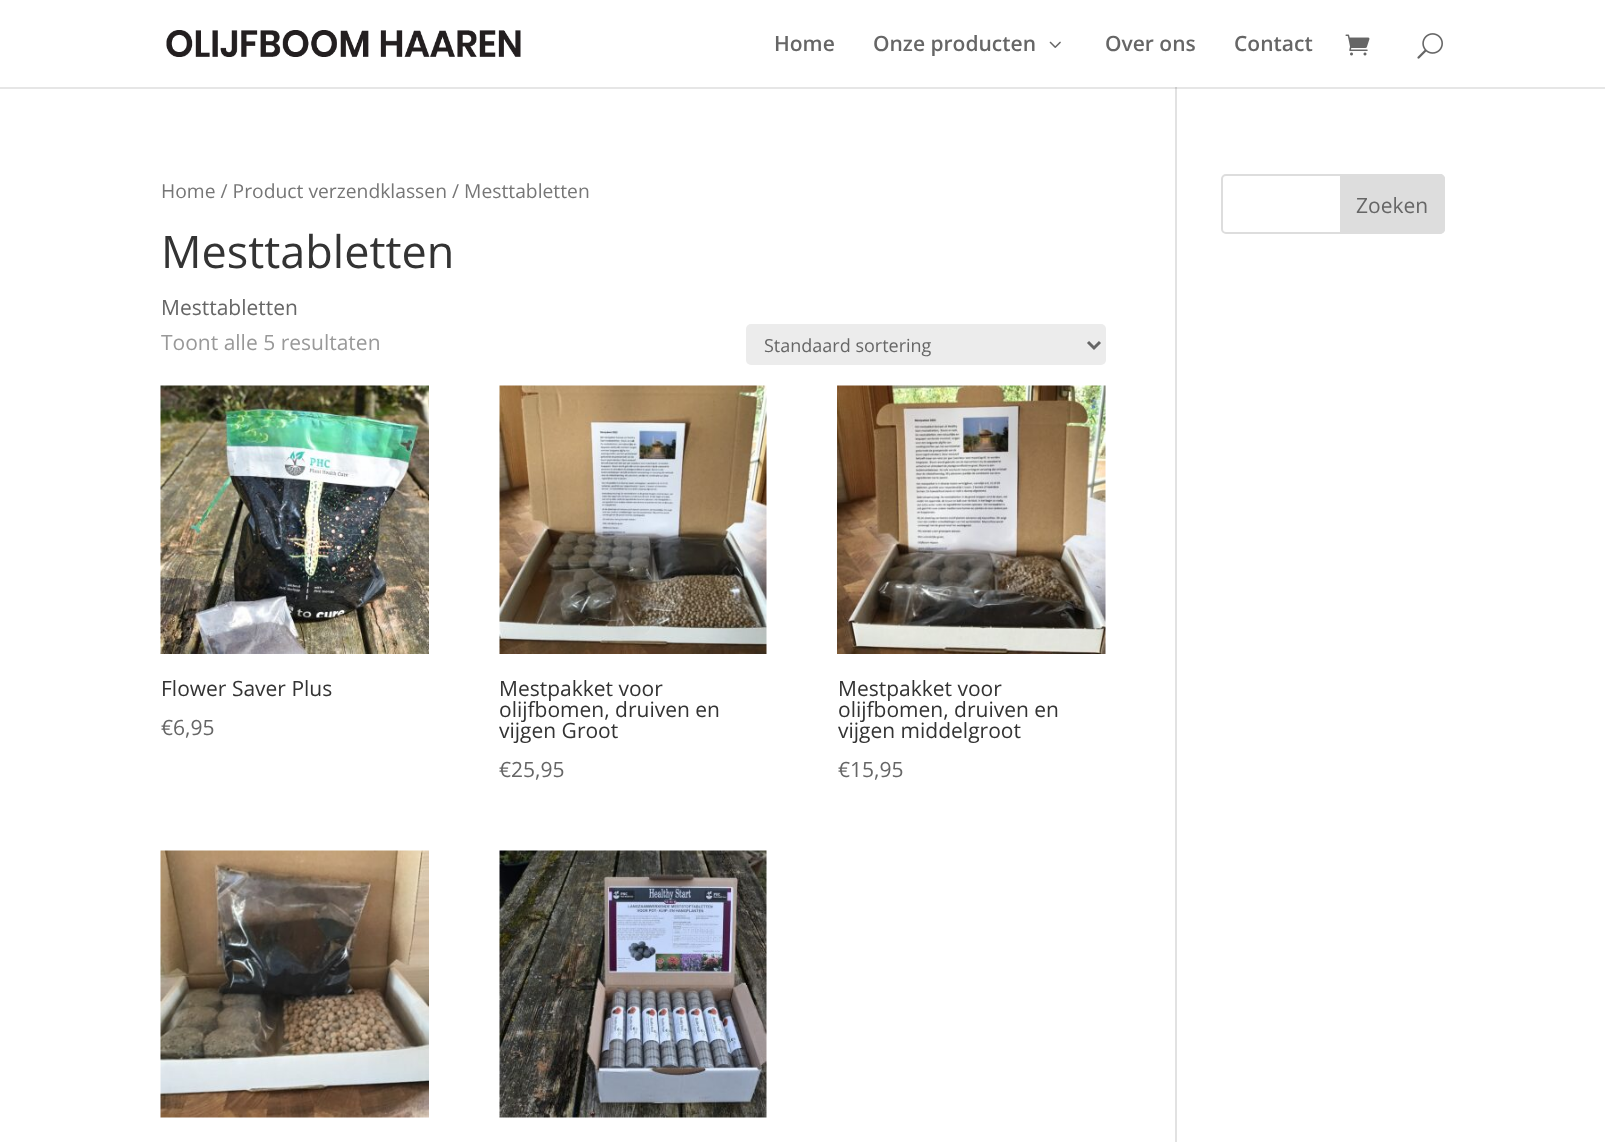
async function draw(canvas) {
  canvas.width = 1605;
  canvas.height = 1142;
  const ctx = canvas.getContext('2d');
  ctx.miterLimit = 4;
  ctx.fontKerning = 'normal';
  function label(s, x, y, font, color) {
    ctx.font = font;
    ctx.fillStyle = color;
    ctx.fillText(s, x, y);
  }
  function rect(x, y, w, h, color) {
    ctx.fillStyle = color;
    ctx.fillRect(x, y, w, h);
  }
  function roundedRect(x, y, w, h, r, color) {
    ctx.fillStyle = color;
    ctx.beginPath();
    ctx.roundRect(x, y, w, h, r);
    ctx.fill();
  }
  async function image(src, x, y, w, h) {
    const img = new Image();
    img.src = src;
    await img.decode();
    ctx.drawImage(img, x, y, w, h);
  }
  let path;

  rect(0, 0, 1605, 1142, '#fff');
  rect(0, 87, 1605, 2, '#e6e6e6');
  await image('assets/img1.png', 166, 30, 355, 27);
  label('Home', 774, 51, '600 21px Open Sans', '#666');
  label('Onze producten', 873, 51, '600 21px Open Sans', '#666');
  await image('assets/img2.png', 1049, 41, 12, 7);
  label('Over ons', 1105, 51, '600 21px Open Sans', '#666');
  label('Contact', 1234, 51, '600 21px Open Sans', '#666');
  await image('assets/img3.png', 1345, 34, 25, 22);
  await image('assets/img4.png', 1417, 33, 26, 26);
  rect(1175, 87, 2, 1055, '#e2e2e2');
  rect(1175, 87, 2, 2, '#cbcbcb');
  label('Home / Product verzendklassen / Mesttabletten', 161, 198, '19.3px Open Sans', '#767676');
  label('Mesttabletten', 161, 268, '45px Open Sans', '#333');
  label('Mesttabletten', 161, 315, '21px Open Sans', '#666');
  label('Toont alle 5 resultaten', 161, 350, '21px Open Sans', '#999');
  roundedRect(746, 324, 360, 41, 5, '#ececec');
  path = new Path2D('M1088 342L1094 348L1100 342');
  ctx.strokeStyle = '#666';
  ctx.lineWidth = 3;
  ctx.stroke(path);
  label('Standaard sortering', 764, 352, '18px Open Sans', '#666');
  await image('assets/img5.png', 160, 385, 269, 269);
  label('Flower Saver Plus', 161, 696, '21px Open Sans', '#333');
  label('€6,95', 161, 735, '21px Open Sans', '#666');
  await image('assets/img6.png', 499, 385, 268, 269);
  label('Mestpakket voor', 499, 696, '21px Open Sans', '#333');
  label('olijfbomen, druiven en', 499, 717, '21px Open Sans', '#333');
  label('vijgen Groot', 499, 738, '21px Open Sans', '#333');
  label('€25,95', 499, 777, '21px Open Sans', '#666');
  await image('assets/img7.png', 837, 385, 269, 269);
  label('Mestpakket voor', 838, 696, '21px Open Sans', '#333');
  label('olijfbomen, druiven en', 838, 717, '21px Open Sans', '#333');
  label('vijgen middelgroot', 838, 738, '21px Open Sans', '#333');
  label('€15,95', 838, 777, '21px Open Sans', '#666');
  await image('assets/img8.png', 160, 850, 269, 268);
  await image('assets/img9.png', 499, 850, 268, 268);
  ctx.beginPath();
  ctx.roundRect(1222, 175, 222, 58, 4);
  ctx.strokeStyle = '#ddd';
  ctx.lineWidth = 2;
  ctx.stroke();
  ctx.fillStyle = '#ddd';
  ctx.beginPath();
  ctx.roundRect(1341, 175, 103, 58, [0, 4, 4, 0]);
  ctx.fill();
  ctx.stroke();
  label('Zoeken', 1356, 213, '21px Open Sans', '#666');
}

draw(document.querySelector('canvas'));
